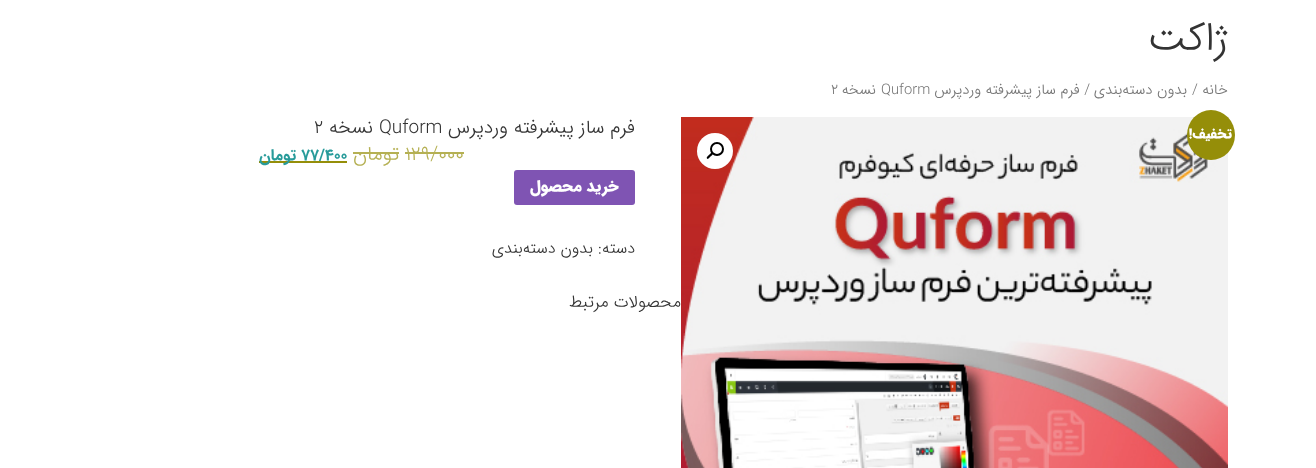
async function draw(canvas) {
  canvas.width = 1316;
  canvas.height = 468;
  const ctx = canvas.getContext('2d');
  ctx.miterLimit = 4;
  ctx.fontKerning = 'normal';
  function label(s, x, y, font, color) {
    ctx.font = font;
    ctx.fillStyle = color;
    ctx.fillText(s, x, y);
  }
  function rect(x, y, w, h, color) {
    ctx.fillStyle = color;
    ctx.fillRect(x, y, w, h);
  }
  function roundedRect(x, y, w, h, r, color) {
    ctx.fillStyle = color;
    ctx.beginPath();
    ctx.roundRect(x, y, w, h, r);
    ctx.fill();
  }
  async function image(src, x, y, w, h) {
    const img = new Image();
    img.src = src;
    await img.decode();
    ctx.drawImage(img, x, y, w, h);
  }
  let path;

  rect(0, 0, 1316, 468, '#fff');
  ctx.direction = 'rtl';
  label('ژاکت', 1228, 50, '300 40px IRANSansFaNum', '#333');
  label('خانه', 1228, 94, '300 14.75px IRANSansFaNum', '#767676');
  ctx.direction = 'ltr';
  label('/', 1192, 94, '300 14.75px IRANSansFaNum', '#767676');
  ctx.direction = 'rtl';
  label('بدون دسته‌بندی', 1187, 94, '300 14.75px IRANSansFaNum', '#767676');
  label('/ فرم ساز پیشرفته وردپرس', 1090, 94, '300 14.75px IRANSansFaNum', '#767676');
  ctx.direction = 'ltr';
  label('Quform', 881, 94, '300 14.75px IRANSansFaNum', '#767676');
  ctx.direction = 'rtl';
  label('نسخه', 876, 94, '300 14.75px IRANSansFaNum', '#767676');
  ctx.direction = 'ltr';
  label('2', 831, 94, '300 14.75px IRANSansFaNum', '#767676');
  await image('assets/img1.png', 681, 117, 547, 351);
  ctx.fillStyle = '#fff';
  ctx.beginPath();
  ctx.arc(715, 151, 18, 0, 2 * Math.PI);
  ctx.fill();
  ctx.beginPath();
  ctx.arc(717, 149, 6, 0, 2 * Math.PI);
  ctx.strokeStyle = '#000';
  ctx.lineWidth = 2;
  ctx.stroke();
  ctx.fillStyle = '#000';
  path = new Path2D('M712.5 153C714 154 711 156 710.5 156.5C710 157 708 160 707 158.5C706 157.5 708.5 155.5 709 155C709.5 154.5 711.5 152 712.5 153Z');
  ctx.fill(path);
  ctx.direction = 'rtl';
  label('فرم ساز پیشرفته وردپرس', 635, 133, '300 19px IRANSansFaNum', '#333');
  ctx.direction = 'ltr';
  label('Quform', 379, 133, '300 19px IRANSansFaNum', '#333');
  ctx.direction = 'rtl';
  label('نسخه', 373, 133, '300 19px IRANSansFaNum', '#333');
  ctx.direction = 'ltr';
  label('2', 314, 133, '300 19px IRANSansFaNum', '#333');
  label('129/000', 405, 160, '300 20px IRANSansFaNum', '#b5b053');
  rect(405, 152, 59, 2, '#b5b053');
  ctx.direction = 'rtl';
  label('تومان', 399, 160, '300 20px IRANSansFaNum', '#b5b053');
  rect(353, 152, 46, 2, '#b5b053');
  ctx.direction = 'ltr';
  label('77/400', 301, 160, 'bold 16px IRANSansFaNum', '#289b9a');
  rect(259, 161, 88, 2, '#958e09');
  ctx.direction = 'rtl';
  label('تومان', 296, 160, 'bold 16px IRANSansFaNum', '#289b9a');
  roundedRect(514, 170, 121, 35, 3, '#7f54b3');
  label('خرید محصول', 619, 191, '900 16px IRANSansFaNum', '#fff');
  label('دسته:', 635, 253, '300 16px IRANSansFaNum', '#333');
  label('بدون دسته‌بندی', 593, 253, '300 16px IRANSansFaNum', '#333');
  ctx.fillStyle = '#958e09';
  ctx.beginPath();
  ctx.ellipse(1211, 135, 24, 25, 0, 0, 2 * Math.PI);
  ctx.fill();
  label('تخفیف!', 1232, 138, '900 14px IRANSansFaNum', '#fff');
  label('محصولات مرتبط', 681, 307, '300 17px IRANSansFaNum', '#333');
}

draw(document.querySelector('canvas'));
